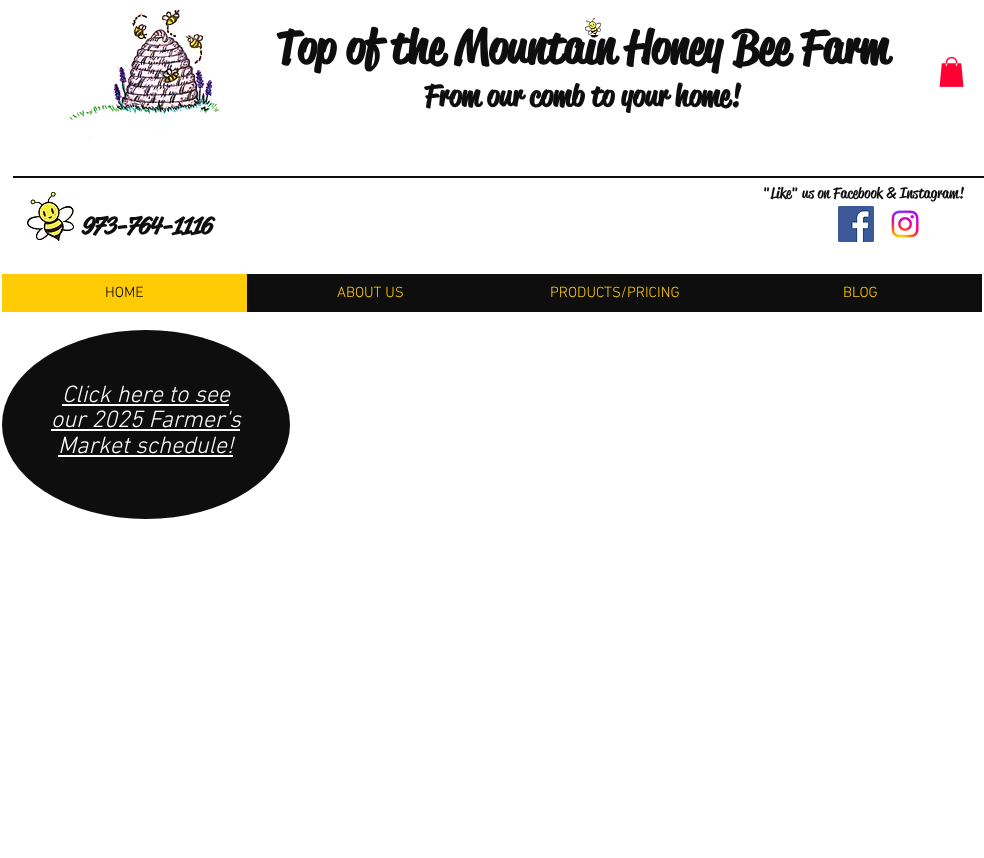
async function draw(canvas) {
  canvas.width = 984;
  canvas.height = 858;
  const ctx = canvas.getContext('2d');
  ctx.miterLimit = 4;
  ctx.fontKerning = 'normal';
  function label(s, x, y, font, color) {
    ctx.font = font;
    ctx.fillStyle = color;
    ctx.fillText(s, x, y);
  }
  function rect(x, y, w, h, color) {
    ctx.fillStyle = color;
    ctx.fillRect(x, y, w, h);
  }
  async function image(src, x, y, w, h) {
    const img = new Image();
    img.src = src;
    await img.decode();
    ctx.drawImage(img, x, y, w, h);
  }

  rect(0, 0, 984, 858, '#fff');
  await image('assets/img1.png', 69, 9, 150, 130);
  label('Top of the Mountain Honey Bee Farm', 276, 63, 'bold 46px "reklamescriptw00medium"', '#0e0e0e');
  await image('assets/img2.png', 585, 18, 16, 17);
  label('From our comb to your home!', 424, 106, 'bold 30px "reklamescriptw00medium"', '#0e0e0e');
  await image('assets/img3.png', 939, 57, 25, 30);
  rect(13, 176, 971, 2, '#0e0e0e');
  await image('assets/img4.png', 27, 192, 47, 49);
  label('"Like" us on Facebook & Instagram!', 763, 198, '500 15px "reklamescriptw00medium"', '#0e0e0e');
  label('973-764-1116', 81, 234, 'italic bold 24px "reklamescriptw00medium"', '#0e0e0e');
  await image('assets/img5.png', 838, 206, 36, 36);
  await image('assets/img6.png', 891, 210, 28, 28);
  rect(247, 274, 735, 38, '#0e0e0e');
  rect(2, 274, 245, 38, '#ffcb05');
  label('HOME', 105, 297, '300 15px "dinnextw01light"', '#000');
  label('ABOUT US', 337, 297, '300 15px "dinnextw01light"', '#ffcb05');
  label('PRODUCTS/PRICING', 550, 297, '300 15px "dinnextw01light"', '#ffcb05');
  label('BLOG', 843, 297, '300 15px "dinnextw01light"', '#ffcb05');
  ctx.fillStyle = '#0e0e0e';
  ctx.beginPath();
  ctx.ellipse(146, 424.5, 144, 94.5, 0, 0, 2 * Math.PI);
  ctx.fill();
  label('Click here to see', 62, 402, 'italic 300 24px "dinnextw01light"', '#fff');
  rect(62, 404, 167, 2, '#fff');
  label('our 2025 Farmer\'s', 51, 427, 'italic 300 24px "dinnextw01light"', '#fff');
  rect(51, 429, 189, 2, '#fff');
  label('Market schedule!', 58, 453, 'italic 300 24px "dinnextw01light"', '#fff');
  rect(58, 455, 175, 2, '#fff');
}

draw(document.querySelector('canvas'));
